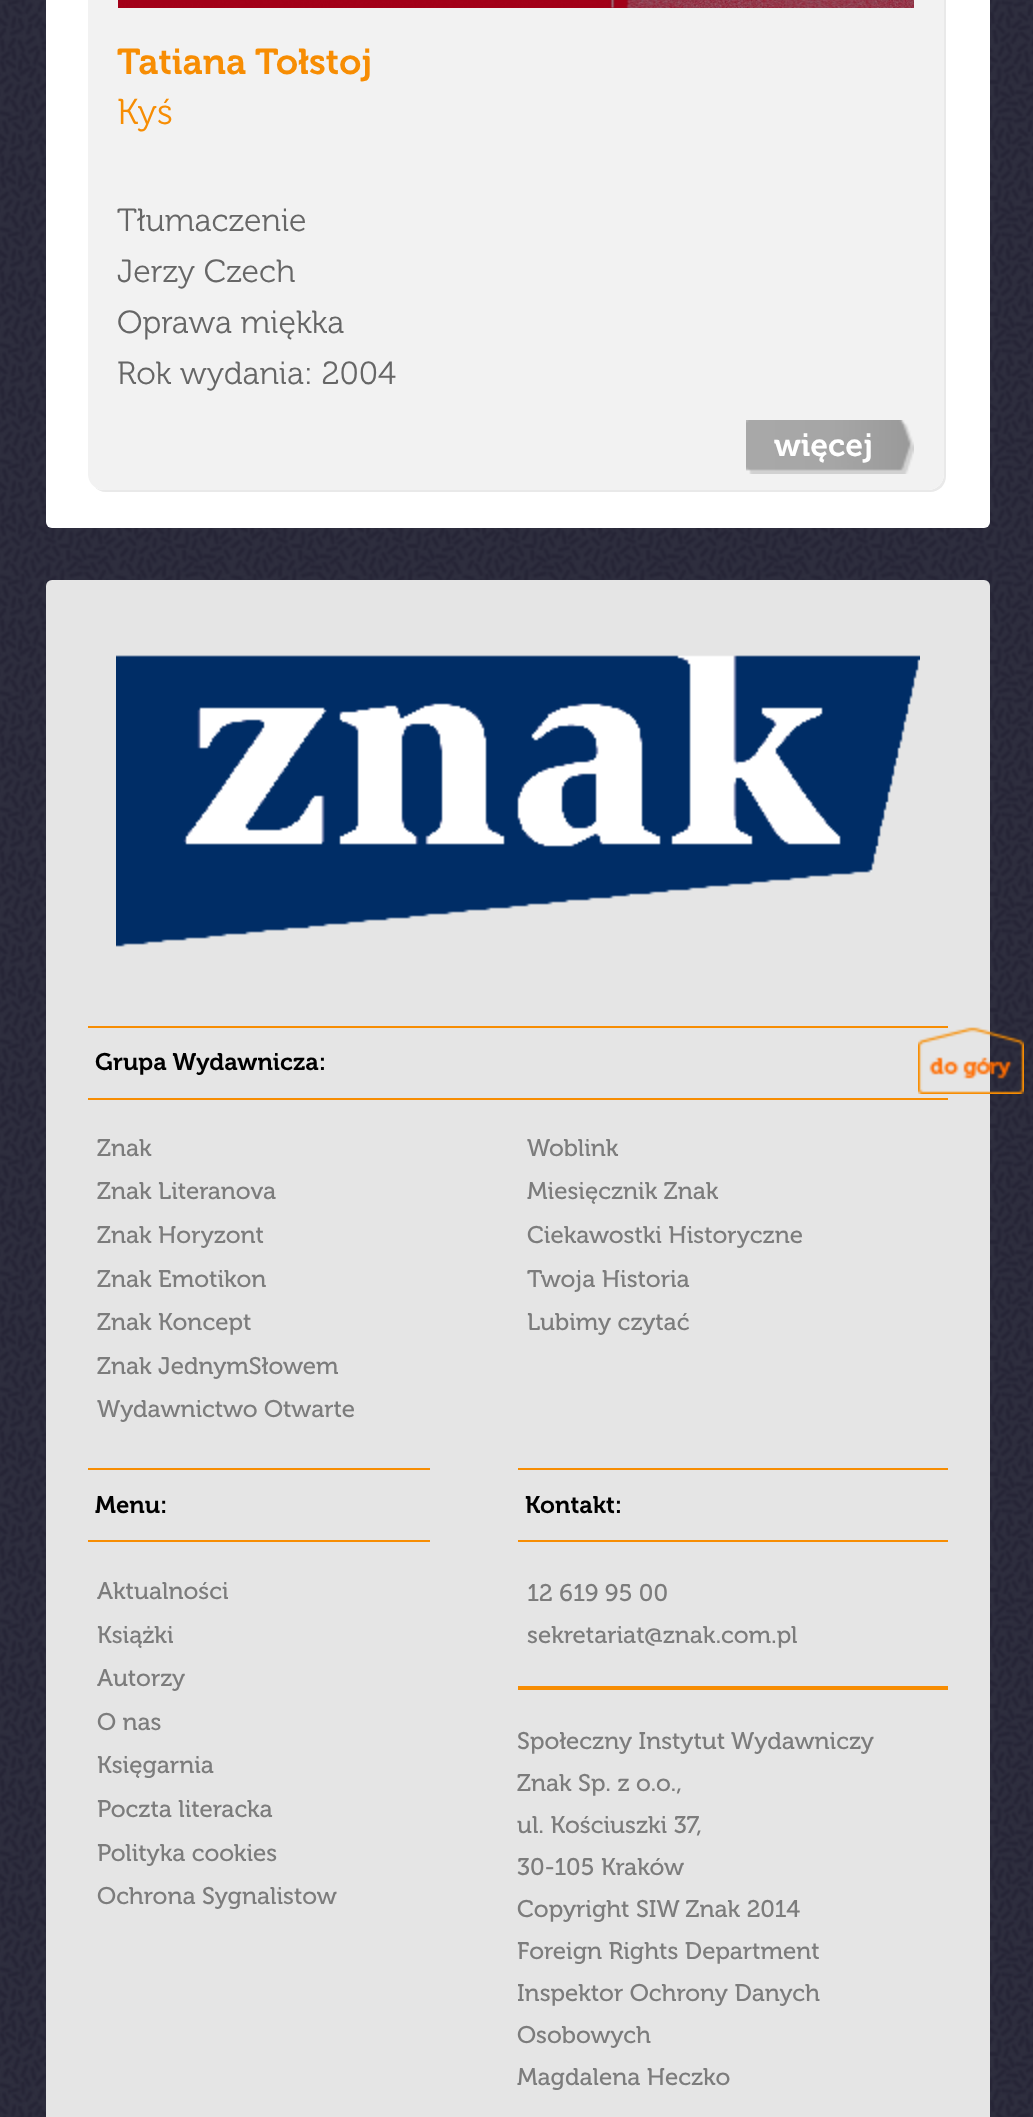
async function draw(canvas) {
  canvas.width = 1033;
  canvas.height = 2117;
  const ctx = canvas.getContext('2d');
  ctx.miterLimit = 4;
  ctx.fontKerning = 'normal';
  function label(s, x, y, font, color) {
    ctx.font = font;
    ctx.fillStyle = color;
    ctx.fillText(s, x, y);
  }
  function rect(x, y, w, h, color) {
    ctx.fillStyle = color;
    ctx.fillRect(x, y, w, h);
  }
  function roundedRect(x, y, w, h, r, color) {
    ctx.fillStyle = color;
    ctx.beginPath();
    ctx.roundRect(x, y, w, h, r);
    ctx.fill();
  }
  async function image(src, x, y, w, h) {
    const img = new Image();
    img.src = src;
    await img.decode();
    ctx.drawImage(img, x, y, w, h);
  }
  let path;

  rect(0, 0, 1033, 2117, '#fff');
  await image('assets/img1.png', 0, 0, 1033, 2117);
  roundedRect(46, -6, 944, 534, 6, '#fff');
  ctx.fillStyle = '#e9e9e9';
  path = new Path2D('M94 486C97 490 101 492 106 492H930C939 492 946 485 946 476V-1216C946-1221 944-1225 940-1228C943-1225 944-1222 944-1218V474C944 483 937 490 928 490H104C100 490 97 489 94 486Z');
  ctx.fill(path);
  ctx.fillStyle = '#f2f2f2';
  ctx.beginPath();
  ctx.roundRect(89, -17, 854, 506, 15);
  ctx.fill();
  ctx.strokeStyle = '#f2f2f2';
  ctx.lineWidth = 2;
  ctx.stroke();
  await image('assets/img2.png', 118, 0, 796, 8);
  label('Tatiana Tołstoj', 117, 74, '600 36px "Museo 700"', '#f78d03');
  label('Kyś', 117, 124, '300 36px "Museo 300"', '#f78d03');
  label('Tłumaczenie', 117, 231, '300 32px "Museo 300"', '#666');
  label('Jerzy Czech', 117, 282, '300 32px "Museo 300"', '#666');
  label('Oprawa miękka', 117, 333, '300 32px "Museo 300"', '#666');
  label('Rok wydania: 2004', 117, 384, '300 32px "Museo 300"', '#666');
  await image('assets/img3.png', 746, 420, 168, 54);
  label('więcej', 774, 456, '600 32px "Museo 700"', '#fff');
  roundedRect(46, 580, 944, 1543, 6, '#e5e5e5');
  rect(88, 1026, 860, 2, '#f78d03');
  await image('assets/img4.png', 918, 1027, 106, 67);
  await image('assets/img5.png', 116, 655, 804, 292);
  rect(88, 1098, 860, 2, '#f78d03');
  label('Grupa Wydawnicza:', 95, 1070, '600 24px "Museo 700"', '#000');
  label('Znak', 97, 1156, '24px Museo', '#7c7c7c');
  label('Znak Literanova', 97, 1199, '24px Museo', '#7c7c7c');
  label('Znak Horyzont', 97, 1243, '24px Museo', '#7c7c7c');
  label('Znak Emotikon', 97, 1287, '24px Museo', '#7c7c7c');
  label('Znak Koncept', 97, 1330, '24px Museo', '#7c7c7c');
  label('Znak JednymSłowem', 97, 1374, '24px Museo', '#7c7c7c');
  label('Wydawnictwo Otwarte', 97, 1417, '24px Museo', '#7c7c7c');
  label('Woblink', 527, 1156, '24px Museo', '#7c7c7c');
  label('Miesięcznik Znak', 527, 1199, '24px Museo', '#7c7c7c');
  label('Ciekawostki Historyczne', 527, 1243, '24px Museo', '#7c7c7c');
  label('Twoja Historia', 527, 1287, '24px Museo', '#7c7c7c');
  label('Lubimy czytać', 527, 1330, '24px Museo', '#7c7c7c');
  rect(88, 1468, 342, 2, '#f78d03');
  rect(88, 1540, 342, 2, '#f78d03');
  label('Menu:', 95, 1513, '600 24px "Museo 700"', '#000');
  label('Aktualności', 97, 1599, '24px Museo', '#7c7c7c');
  label('Książki', 97, 1643, '24px Museo', '#7c7c7c');
  label('Autorzy', 97, 1686, '24px Museo', '#7c7c7c');
  label('O nas', 97, 1730, '24px Museo', '#7c7c7c');
  label('Księgarnia', 97, 1773, '24px Museo', '#7c7c7c');
  label('Poczta literacka', 97, 1817, '24px Museo', '#7c7c7c');
  label('Polityka cookies', 97, 1861, '24px Museo', '#7c7c7c');
  label('Ochrona Sygnalistow', 97, 1904, '24px Museo', '#7c7c7c');
  rect(518, 1468, 430, 2, '#f78d03');
  rect(518, 1540, 430, 2, '#f78d03');
  label('Kontakt:', 525, 1513, '600 24px "Museo 700"', '#000');
  label('12 619 95 00', 527, 1601, '24px Museo', '#7c7c7c');
  label('sekretariat@znak.com.pl', 527, 1643, '24px Museo', '#7c7c7c');
  rect(518, 1686, 430, 4, '#f78d03');
  label('Społeczny Instytut Wydawniczy', 517, 1749, '24px Museo', '#7c7c7c');
  label('Znak Sp. z o.o.,', 517, 1791, '24px Museo', '#7c7c7c');
  label('ul. Kościuszki 37,', 517, 1833, '24px Museo', '#7c7c7c');
  label('30-105 Kraków', 517, 1875, '24px Museo', '#7c7c7c');
  label('Copyright SIW Znak 2014', 517, 1917, '24px Museo', '#7c7c7c');
  label('Foreign Rights Department', 517, 1959, '24px Museo', '#7c7c7c');
  label('Inspektor Ochrony Danych', 517, 2001, '24px Museo', '#7c7c7c');
  label('Osobowych', 517, 2043, '24px Museo', '#7c7c7c');
  label('Magdalena Heczko', 517, 2085, '24px Museo', '#7c7c7c');
}

draw(document.querySelector('canvas'));
